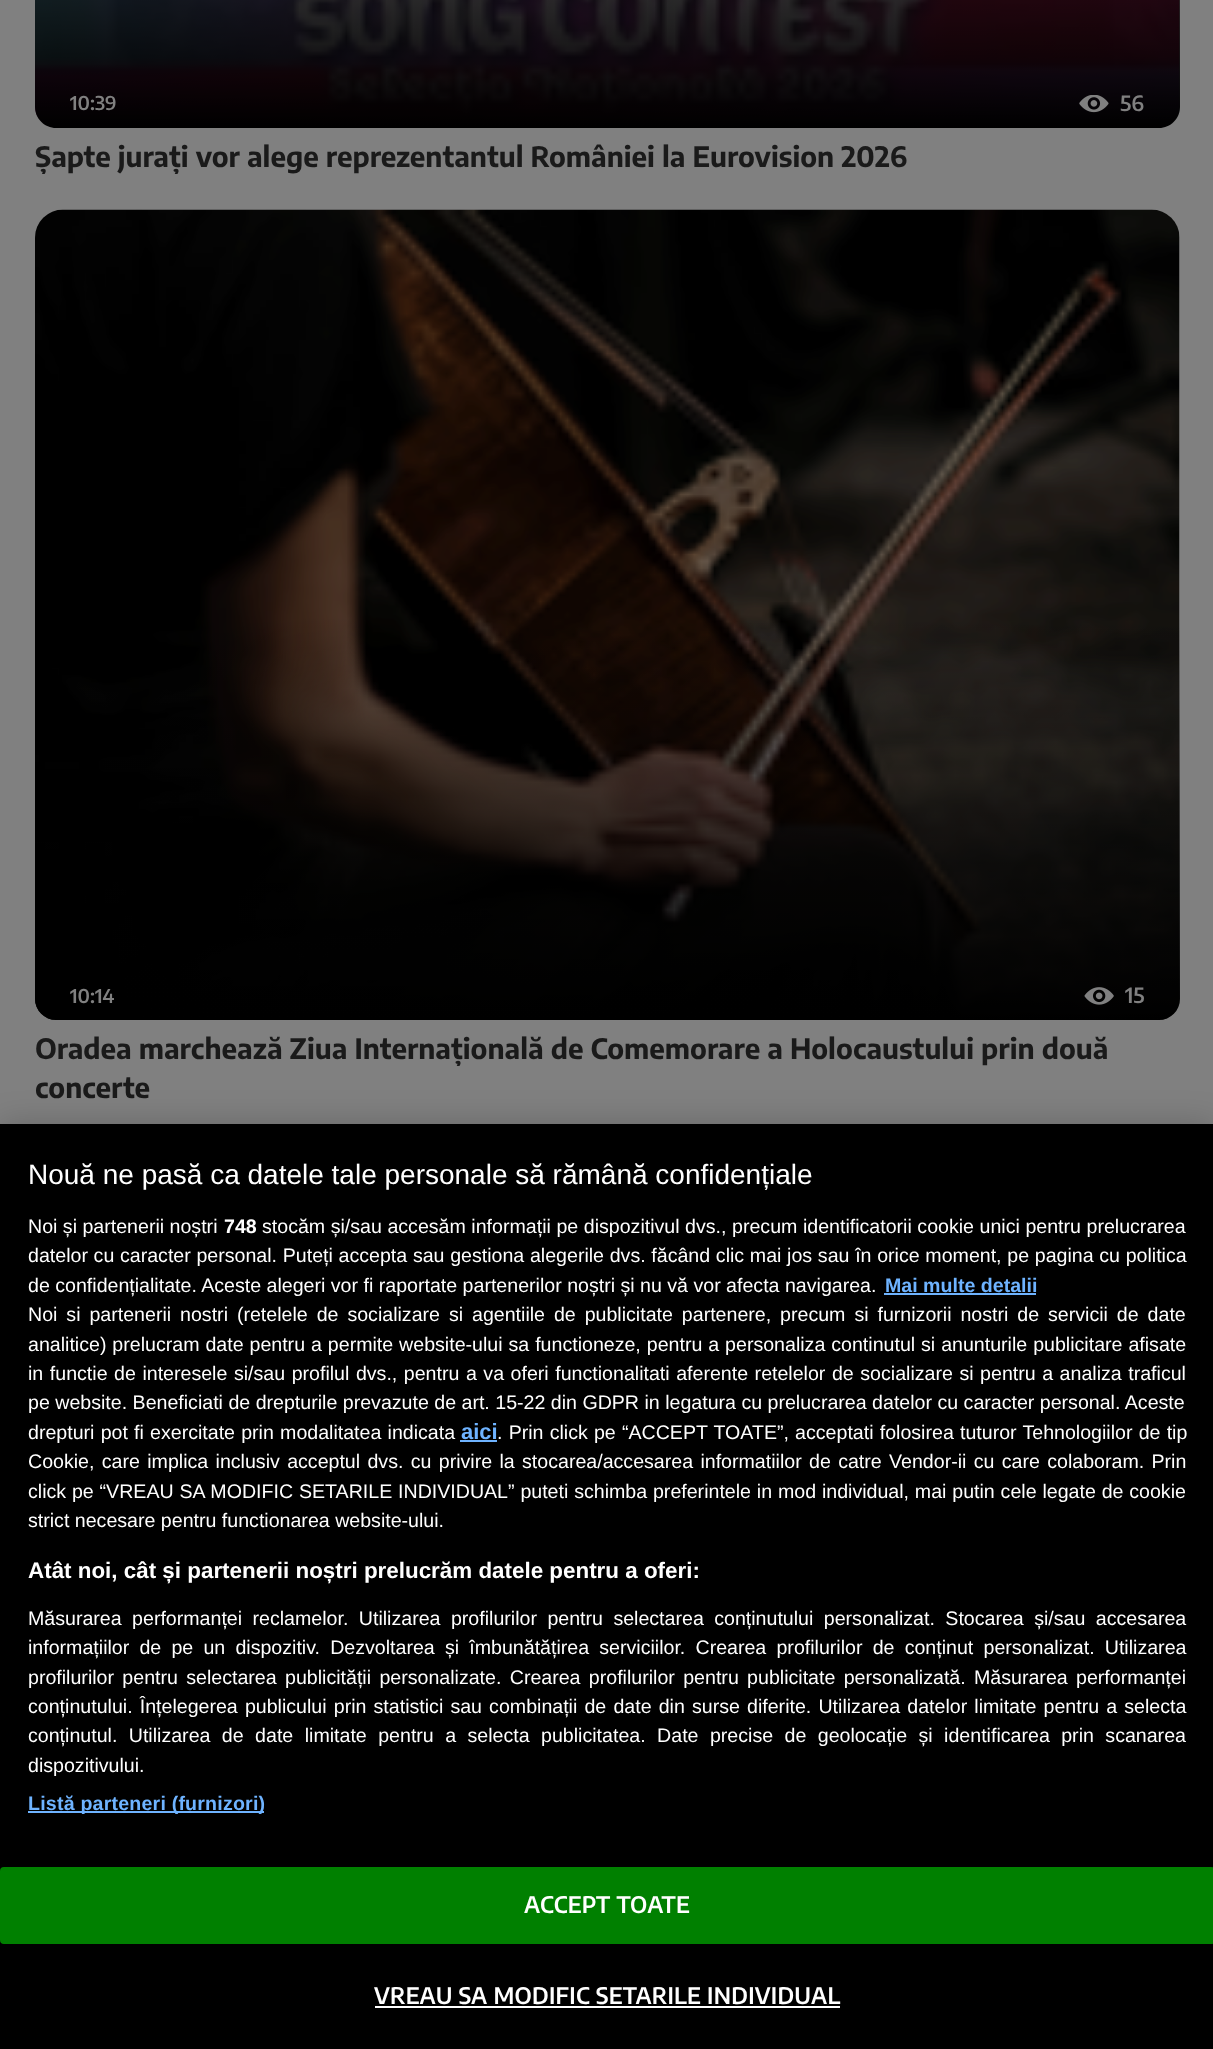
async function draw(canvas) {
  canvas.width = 1213;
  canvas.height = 2049;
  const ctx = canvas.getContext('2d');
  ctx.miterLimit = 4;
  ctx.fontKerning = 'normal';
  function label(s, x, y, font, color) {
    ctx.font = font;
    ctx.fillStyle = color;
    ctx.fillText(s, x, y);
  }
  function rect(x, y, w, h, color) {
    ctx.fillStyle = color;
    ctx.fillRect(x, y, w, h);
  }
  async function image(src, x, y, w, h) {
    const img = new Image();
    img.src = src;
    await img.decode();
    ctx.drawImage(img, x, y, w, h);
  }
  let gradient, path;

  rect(0, 0, 1213, 2049, '#808080');
  await image('assets/img1.png', 35, 0, 1145, 128);
  gradient = ctx.createLinearGradient(607, -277, 607, 128);
  gradient.addColorStop(0, '#00000000');
  gradient.addColorStop(1, '#000');
  ctx.fillStyle = gradient;
  path = new Path2D('M35-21H1180V107C1180 118.5 1170.5 128 1159 128H56C44.5 128 35 118.5 35 107Z');
  ctx.fill(path);
  label('10:39', 70, 110, '600 19px Encode Sans Condensed', '#808080');
  await image('assets/img2.png', 1079, 95, 30, 18);
  label('56', 1120, 111, '600 21px Encode Sans Condensed', '#808080');
  label('Șapte jurați vor alege reprezentantul României la Eurovision 2026', 35, 167, 'bold 28px Encode Sans Condensed', '#1a1a1a');
  await image('assets/img3.png', 35, 209, 1145, 811);
  gradient = ctx.createLinearGradient(607, 616, 607, 1020);
  gradient.addColorStop(0, '#00000000');
  gradient.addColorStop(1, '#000');
  ctx.fillStyle = gradient;
  ctx.beginPath();
  ctx.roundRect(35, 616, 1145, 404, [0, 0, 21, 21]);
  ctx.fill();
  label('10:14', 70, 1003, '600 19px Encode Sans Condensed', '#808080');
  await image('assets/img4.png', 1084, 987, 30, 18);
  label('15', 1125, 1003, '600 21px Encode Sans Condensed', '#808080');
  label('Oradea marchează Ziua Internațională de Comemorare a Holocaustului prin două', 35, 1059, 'bold 28px Encode Sans Condensed', '#1a1a1a');
  label('concerte', 35, 1098, 'bold 28px Encode Sans Condensed', '#1a1a1a');
  ctx.fillStyle = '#00000033';
  ctx.filter = 'blur(16px)';
  ctx.beginPath();
  ctx.rect(0, 1124, 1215, 925);
  ctx.fill();
  ctx.filter = 'none';
  rect(0, 1124, 1213, 925, '#000');
  label('Nouă ne pasă ca datele tale personale să rămână confidențiale', 28, 1184, '28px Liberation Sans', '#fff');
  label('Noi și partenerii noștri', 28, 1233, '19.6px Liberation Sans', '#fff');
  label('748', 224, 1233, 'bold 19.6px Liberation Sans', '#fff');
  ctx.wordSpacing = '0.1px';
  label('stocăm și/sau accesăm informații pe dispozitivul dvs., precum identificatorii cookie unici pentru prelucrarea', 262, 1233, '19.6px Liberation Sans', '#fff');
  ctx.wordSpacing = '0.25px';
  label('datelor cu caracter personal. Puteți accepta sau gestiona alegerile dvs. făcând clic mai jos sau în orice moment, pe pagina cu politica', 28, 1262, '19.6px Liberation Sans', '#fff');
  ctx.wordSpacing = '0px';
  label('de confidențialitate. Aceste alegeri vor fi raportate partenerilor noștri și nu vă vor afecta navigarea.', 28, 1292, '19.6px Liberation Sans', '#fff');
  label('Mai multe detalii', 885, 1292, 'bold 19.6px Liberation Sans', '#6eb3ff');
  rect(884, 1293, 152, 2, '#6eb3ff');
  ctx.wordSpacing = '3.5px';
  label('Noi si partenerii nostri (retelele de socializare si agentiile de publicitate partenere, precum si furnizorii nostri de servicii de date', 28, 1321, '19.6px Liberation Sans', '#fff');
  ctx.wordSpacing = '0.5px';
  label('analitice) prelucram date pentru a permite website-ului sa functioneze, pentru a personaliza continutul si anunturile publicitare afisate', 28, 1351, '19.6px Liberation Sans', '#fff');
  ctx.wordSpacing = '1.1px';
  label('in functie de interesele si/sau profilul dvs., pentru a va oferi functionalitati aferente retelelor de socializare si pentru a analiza traficul', 28, 1380, '19.6px Liberation Sans', '#fff');
  ctx.wordSpacing = '0px';
  label('pe website. Beneficiati de drepturile prevazute de art. 15-22 din GDPR in legatura cu prelucrarea datelor cu caracter personal. Aceste', 28, 1409, '19.6px Liberation Sans', '#fff');
  ctx.wordSpacing = '0.75px';
  label('drepturi pot fi exercitate prin modalitatea indicata', 28, 1439, '19.6px Liberation Sans', '#fff');
  ctx.wordSpacing = '0px';
  label('aici', 461, 1439, 'bold 22px Liberation Sans', '#6eb3ff');
  rect(460, 1440, 37, 2, '#6eb3ff');
  ctx.wordSpacing = '0.75px';
  label('. Prin click pe “ACCEPT TOATE”, acceptati folosirea tuturor Tehnologiilor de tip', 497, 1439, '19.6px Liberation Sans', '#fff');
  ctx.wordSpacing = '1.9px';
  label('Cookie, care implica inclusiv acceptul dvs. cu privire la stocarea/accesarea informatiilor de catre Vendor-ii cu care colaboram. Prin', 28, 1468, '19.6px Liberation Sans', '#fff');
  ctx.wordSpacing = '0.4px';
  label('click pe “VREAU SA MODIFIC SETARILE INDIVIDUAL” puteti schimba preferintele in mod individual, mai putin cele legate de cookie', 28, 1498, '19.6px Liberation Sans', '#fff');
  ctx.wordSpacing = '0px';
  label('strict necesare pentru functionarea website-ului.', 28, 1527, '19.6px Liberation Sans', '#fff');
  label('Atât noi, cât și partenerii noștri prelucrăm datele pentru a oferi:', 28, 1578, 'bold 22.4px Liberation Sans', '#fff');
  ctx.wordSpacing = '5px';
  label('Măsurarea performanței reclamelor. Utilizarea profilurilor pentru selectarea conținutului personalizat. Stocarea și/sau accesarea', 28, 1625, '19.6px Liberation Sans', '#fff');
  ctx.wordSpacing = '4.75px';
  label('informațiilor de pe un dispozitiv. Dezvoltarea și îmbunătățirea serviciilor. Crearea profilurilor de conținut personalizat. Utilizarea', 28, 1654, '19.6px Liberation Sans', '#fff');
  ctx.wordSpacing = '2.9px';
  label('profilurilor pentru selectarea publicității personalizate. Crearea profilurilor pentru publicitate personalizată. Măsurarea performanței', 28, 1684, '19.6px Liberation Sans', '#fff');
  ctx.wordSpacing = '1.7px';
  label('conținutului. Înțelegerea publicului prin statistici sau combinații de date din surse diferite. Utilizarea datelor limitate pentru a selecta', 28, 1713, '19.6px Liberation Sans', '#fff');
  ctx.wordSpacing = '6px';
  label('conținutul. Utilizarea de date limitate pentru a selecta publicitatea. Date precise de geolocație și identificarea prin scanarea', 28, 1742, '19.6px Liberation Sans', '#fff');
  ctx.wordSpacing = '0px';
  label('dispozitivului.', 28, 1772, '19.6px Liberation Sans', '#fff');
  rect(28, 1811, 236, 2, '#6eb3ff');
  ctx.letterSpacing = '0.2px';
  label('Listă parteneri (furnizori)', 28, 1810, 'bold 19.6px Liberation Sans', '#6eb3ff');
  ctx.fillStyle = '#008000';
  ctx.beginPath();
  ctx.roundRect(1, 1868, 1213, 75, 3);
  ctx.fill();
  ctx.strokeStyle = '#008000';
  ctx.lineWidth = 2;
  ctx.stroke();
  ctx.letterSpacing = '0.25px';
  label('ACCEPT TOATE', 524, 1913, '600 22.75px Encode Sans Condensed', '#fff');
  label('VREAU SA MODIFIC SETARILE INDIVIDUAL', 374, 2004, '600 22.75px Encode Sans Condensed', '#fff');
  rect(375, 2006, 465, 2, '#fff');
}

draw(document.querySelector('canvas'));
